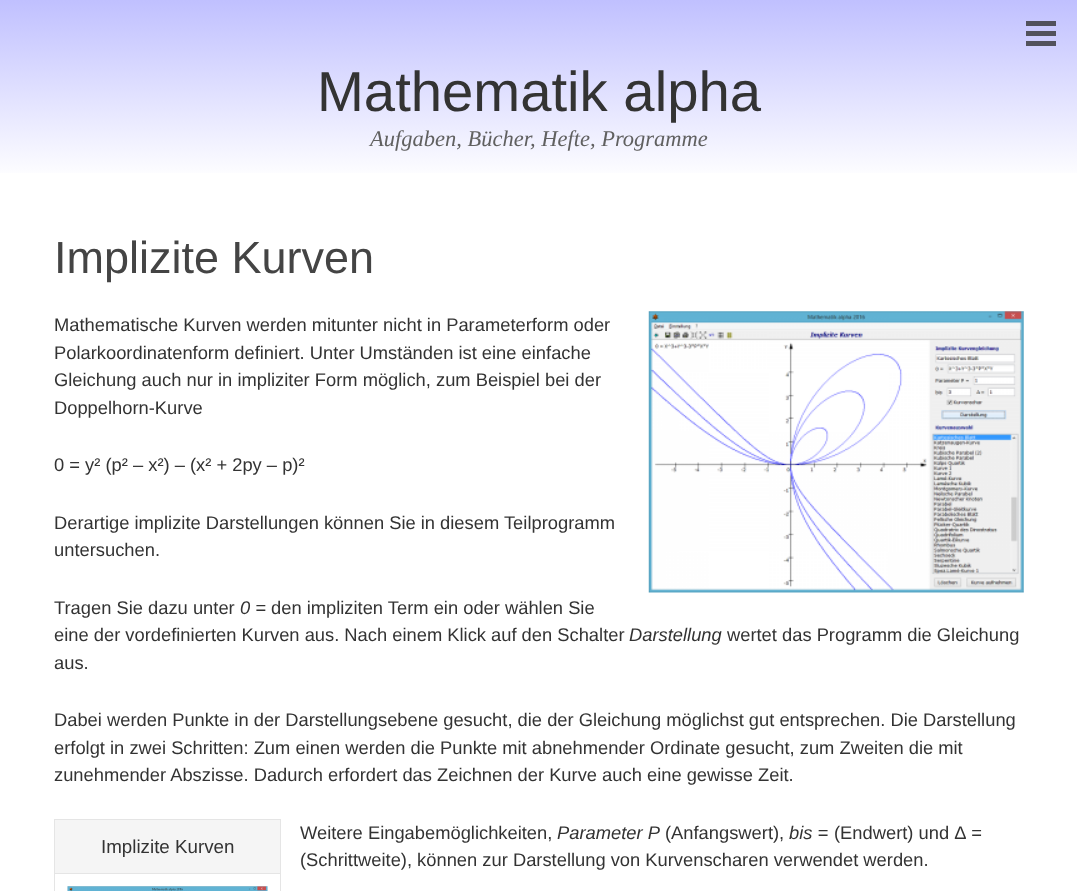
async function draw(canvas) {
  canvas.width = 1077;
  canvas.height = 891;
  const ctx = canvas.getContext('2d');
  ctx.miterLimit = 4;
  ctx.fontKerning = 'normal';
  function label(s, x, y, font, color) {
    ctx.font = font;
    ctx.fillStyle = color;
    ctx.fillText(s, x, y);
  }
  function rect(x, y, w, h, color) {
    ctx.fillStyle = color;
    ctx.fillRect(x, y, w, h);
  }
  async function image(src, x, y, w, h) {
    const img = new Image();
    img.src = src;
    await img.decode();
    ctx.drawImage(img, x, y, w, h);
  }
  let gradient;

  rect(0, 0, 1077, 891, '#fff');
  gradient = ctx.createLinearGradient(539, 0, 539, 180);
  gradient.addColorStop(0, '#c0c0ff');
  gradient.addColorStop(1, '#fff');
  ctx.fillStyle = gradient;
  ctx.fillRect(0, 0, 1077, 173);
  rect(1026, 21, 30, 5, '#51515c');
  rect(1026, 41, 30, 5, '#52525c');
  rect(1026, 31, 30, 5, '#52525c');
  label('Mathematik alpha', 317, 111, '56.25px Liberation Sans', '#333');
  label('Aufgaben, Bücher, Hefte, Programme', 370, 146, 'italic 22.5px Liberation Serif', '#606060');
  label('Implizite Kurven', 54, 273, '45px Liberation Sans', '#444');
  label('Mathematische Kurven werden mitunter nicht in Parameterform oder', 54, 331, '18.33px Liberation Sans', '#333');
  await image('assets/img1.png', 648, 311, 376, 282);
  label('Polarkoordinatenform definiert. Unter Umständen ist eine einfache', 54, 359, '18.33px Liberation Sans', '#333');
  label('Gleichung auch nur in impliziter Form möglich, zum Beispiel bei der', 54, 386, '18.33px Liberation Sans', '#333');
  label('Doppelhorn-Kurve', 54, 414, '18.33px Liberation Sans', '#333');
  label('0 = y² (p² – x²) – (x² + 2py – p)²', 54, 471, '18.33px Liberation Sans', '#333');
  label('Derartige implizite Darstellungen können Sie in diesem Teilprogramm', 54, 529, '18.33px Liberation Sans', '#333');
  label('untersuchen.', 54, 556, '18.33px Liberation Sans', '#333');
  label('Tragen Sie dazu unter', 54, 614, '18.33px Liberation Sans', '#333');
  label('0 =', 240, 614, 'italic 18.33px Liberation Sans', '#333');
  label('den impliziten Term ein oder wählen Sie', 271, 614, '18.33px Liberation Sans', '#333');
  label('eine der vordefinierten Kurven aus. Nach einem Klick auf den Schalter', 54, 641, '18.33px Liberation Sans', '#333');
  label('Darstellung', 629, 641, 'italic 18.33px Liberation Sans', '#333');
  label('wertet das Programm die Gleichung', 727, 641, '18.33px Liberation Sans', '#333');
  label('aus.', 54, 669, '18.33px Liberation Sans', '#333');
  label('Dabei werden Punkte in der Darstellungsebene gesucht, die der Gleichung möglichst gut entsprechen. Die Darstellung', 54, 726, '18.33px Liberation Sans', '#333');
  label('erfolgt in zwei Schritten: Zum einen werden die Punkte mit abnehmender Ordinate gesucht, zum Zweiten die mit', 54, 754, '18.33px Liberation Sans', '#333');
  label('zunehmender Abszisse. Dadurch erfordert das Zeichnen der Kurve auch eine gewisse Zeit.', 54, 781, '18.33px Liberation Sans', '#333');
  rect(54, 819, 227, 1, '#e5e5e5');
  rect(280, 819, 1, 72, '#e5e5e5');
  rect(54, 819, 1, 72, '#e5e5e5');
  rect(55, 820, 225, 53, '#f5f5f5');
  rect(54, 873, 227, 1, '#e5e5e5');
  label('Implizite Kurven', 101, 853, '18.75px Liberation Sans', '#333');
  await image('assets/img2.png', 67, 886, 201, 5);
  label('Weitere Eingabemöglichkeiten,', 300, 839, '18.33px Liberation Sans', '#333');
  label('Parameter P', 557, 839, 'italic 18.33px Liberation Sans', '#333');
  label('(Anfangswert),', 665, 839, '18.33px Liberation Sans', '#333');
  label('bis =', 789, 839, 'italic 18.33px Liberation Sans', '#333');
  label('(Endwert) und Δ', 834, 839, '18.33px Liberation Sans', '#333');
  label('=', 971, 839, 'italic 18.33px Liberation Sans', '#333');
  label('(Schrittweite), können zur Darstellung von Kurvenscharen verwendet werden.', 300, 866, '18.33px Liberation Sans', '#333');
}

draw(document.querySelector('canvas'));
